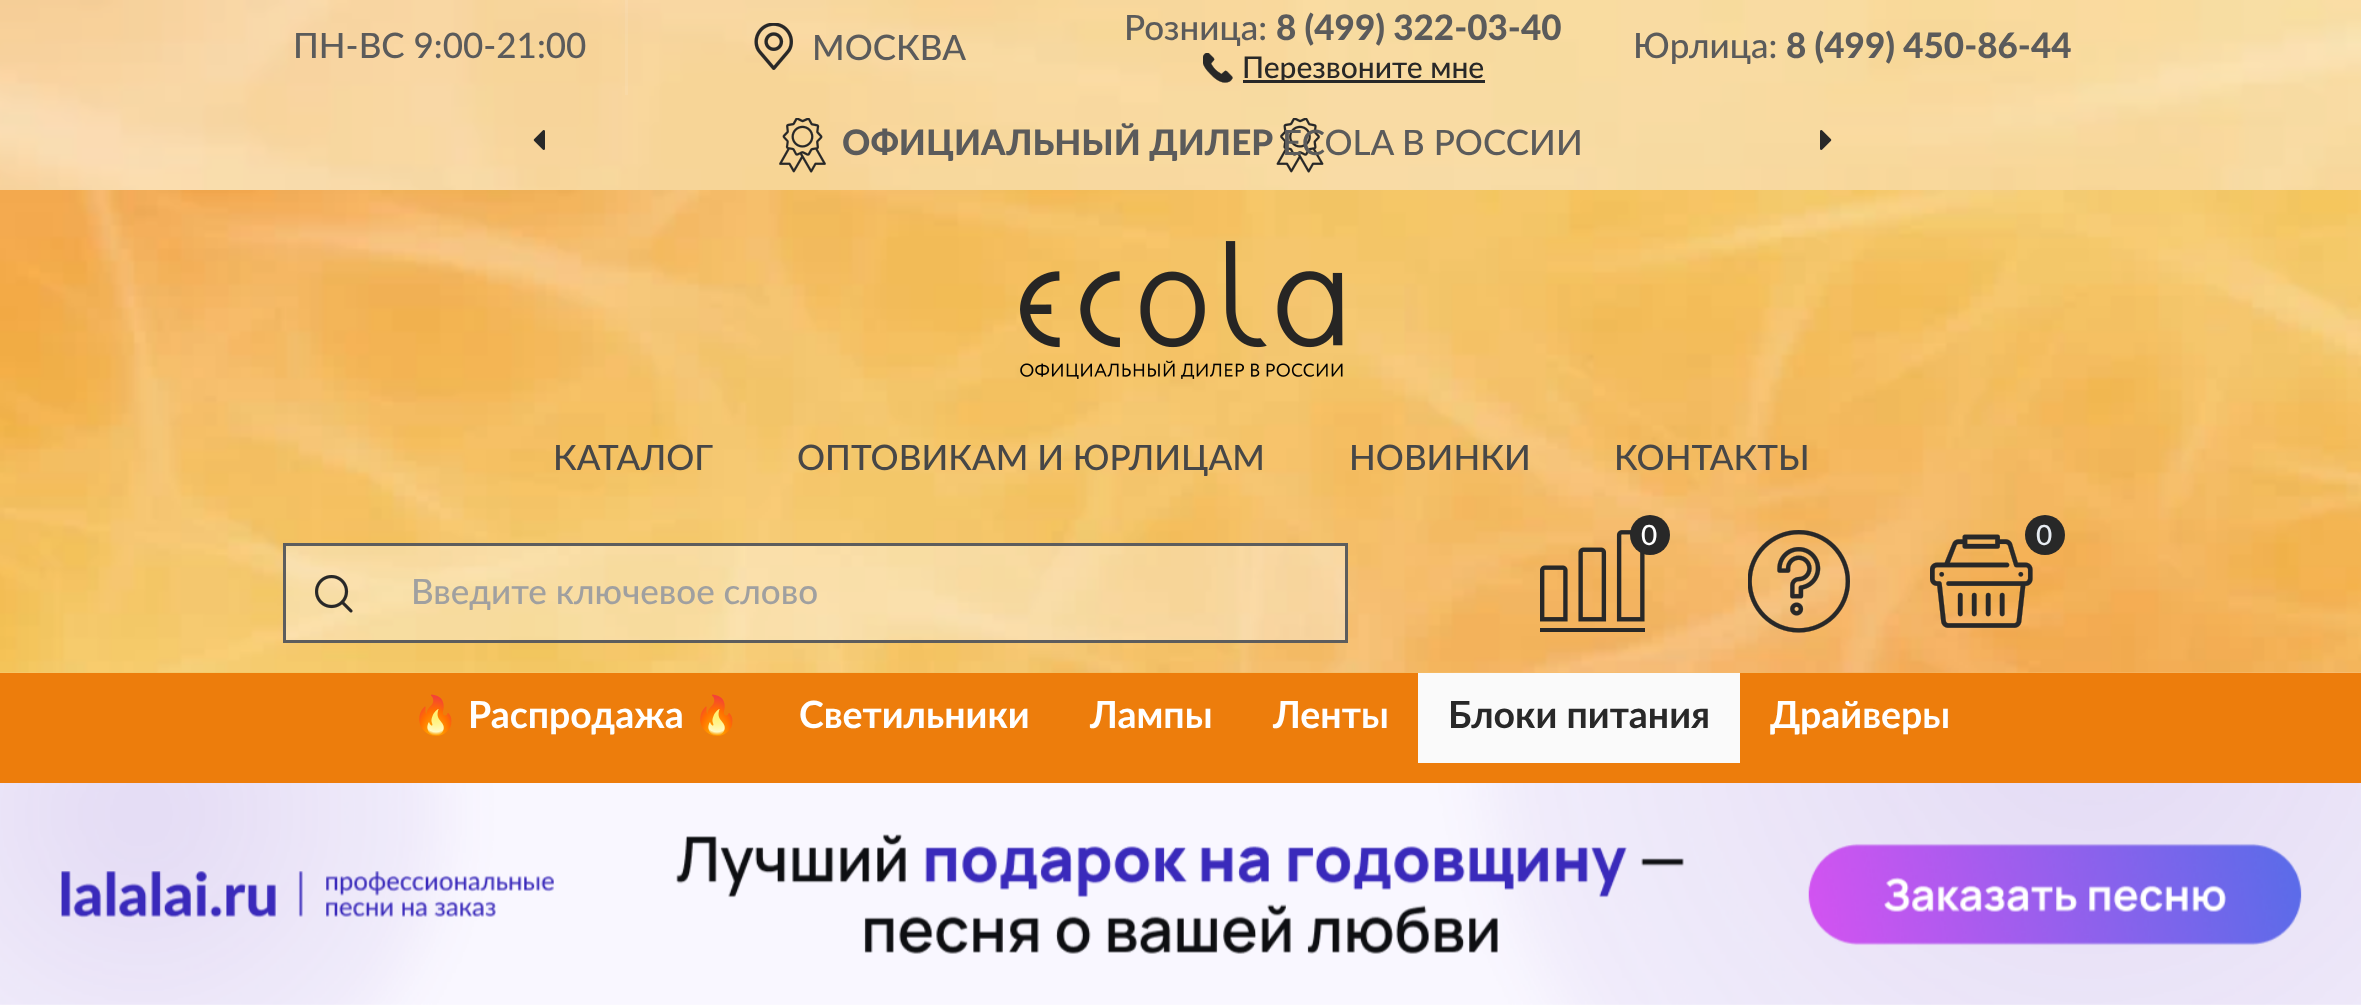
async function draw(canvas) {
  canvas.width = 2361;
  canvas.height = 1005;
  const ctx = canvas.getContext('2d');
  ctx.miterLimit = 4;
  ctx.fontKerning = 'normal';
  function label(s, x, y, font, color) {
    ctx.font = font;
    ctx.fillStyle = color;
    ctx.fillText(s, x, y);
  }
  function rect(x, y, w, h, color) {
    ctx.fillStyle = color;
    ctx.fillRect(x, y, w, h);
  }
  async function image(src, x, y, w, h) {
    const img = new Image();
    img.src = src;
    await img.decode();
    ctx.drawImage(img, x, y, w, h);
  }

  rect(0, 0, 2361, 1005, '#fff');
  await image('assets/img1.png', 0, 0, 2361, 673);
  rect(0, 0, 2361, 190, '#ffffff61');
  rect(625, 0, 3, 95, '#ffffff17');
  label('ПН-ВС 9:00-21:00', 293, 58, '500 35px Lato', '#5b5b5b');
  await image('assets/img2.png', 754, 23, 39, 47);
  label('МОСКВА', 812, 60, '500 35px Lato', '#5b5b5b');
  label('Розница:', 1124, 40, '500 35px Lato', '#5b5b5b');
  label('8 (499) 322-03-40', 1276, 40, '900 35px Lato', '#5b5b5b');
  await image('assets/img3.png', 1203, 53, 30, 30);
  rect(1243, 80, 242, 3, '#282828');
  label('Перезвоните мне', 1242, 78, '500 30px Lato', '#282828');
  label('Юрлица:', 1633, 58, '500 35px Lato', '#5b5b5b');
  label('8 (499) 450-86-44', 1786, 58, '900 35px Lato', '#5b5b5b');
  await image('assets/img4.png', 779, 118, 545, 55);
  label('ОФИЦИАЛЬНЫЙ ДИЛЕР', 842, 155, '900 35px Lato', '#5b5b5b');
  label('ECOLA В РОССИИ', 1282, 155, '500 35px Lato', '#5b5b5b');
  await image('assets/img5.png', 533, 130, 12, 20);
  await image('assets/img6.png', 1820, 130, 12, 20);
  await image('assets/img7.png', 0, 190, 2361, 483);
  await image('assets/img8.png', 1020, 241, 323, 138);
  label('КАТАЛОГ', 553, 470, '500 35px Lato', '#474747');
  label('ОПТОВИКАМ И ЮРЛИЦАМ', 797, 470, '500 35px Lato', '#474747');
  label('НОВИНКИ', 1349, 470, '500 35px Lato', '#474747');
  label('КОНТАКТЫ', 1614, 470, '500 35px Lato', '#474747');
  await image('assets/img9.png', 1540, 530, 105, 102);
  ctx.fillStyle = '#282828';
  ctx.beginPath();
  ctx.arc(1650, 535, 20, 0, 2 * Math.PI);
  ctx.fill();
  label('0', 1641, 545, '500 28px Lato', '#fff');
  await image('assets/img10.png', 1748, 530, 102, 103);
  await image('assets/img11.png', 1930, 534, 103, 94);
  ctx.fillStyle = '#282828';
  ctx.beginPath();
  ctx.arc(2045, 535, 20, 0, 2 * Math.PI);
  ctx.fill();
  label('0', 2036, 545, '500 28px Lato', '#e7ecf2');
  rect(286, 546, 97, 94, '#ffffff61');
  await image('assets/img12.png', 315, 575, 38, 38);
  rect(283, 543, 1065, 3, '#5d5d5d');
  rect(283, 640, 100, 3, '#5d5d5d');
  rect(283, 543, 3, 100, '#5d5d5d');
  rect(383, 546, 962, 94, '#ffffff61');
  rect(1345, 543, 3, 100, '#5d5d5d');
  rect(383, 640, 965, 3, '#5d5d5d');
  label('Введите ключевое слово', 411, 604, '500 35px Lato', '#a0a0a0');
  rect(0, 673, 2361, 110, '#ed7d0c');
  label('🔥', 412, 728, '37.5px Noto Color Emoji', '#fff');
  label('Распродажа', 468, 728, 'bold 37.5px Lato', '#fff');
  label('🔥', 693, 728, '37.5px Noto Color Emoji', '#fff');
  label('Светильники', 799, 728, 'bold 37.5px Lato', '#fff');
  label('Лампы', 1090, 728, 'bold 37.5px Lato', '#fff');
  label('Ленты', 1273, 728, 'bold 37.5px Lato', '#fff');
  rect(1418, 673, 322, 90, '#fafafa');
  label('Блоки питания', 1448, 728, 'bold 37.5px Lato', '#282828');
  label('Драйверы', 1770, 728, 'bold 37.5px Lato', '#fff');
  await image('assets/img13.png', 0, 783, 2361, 222);
}

draw(document.querySelector('canvas'));
